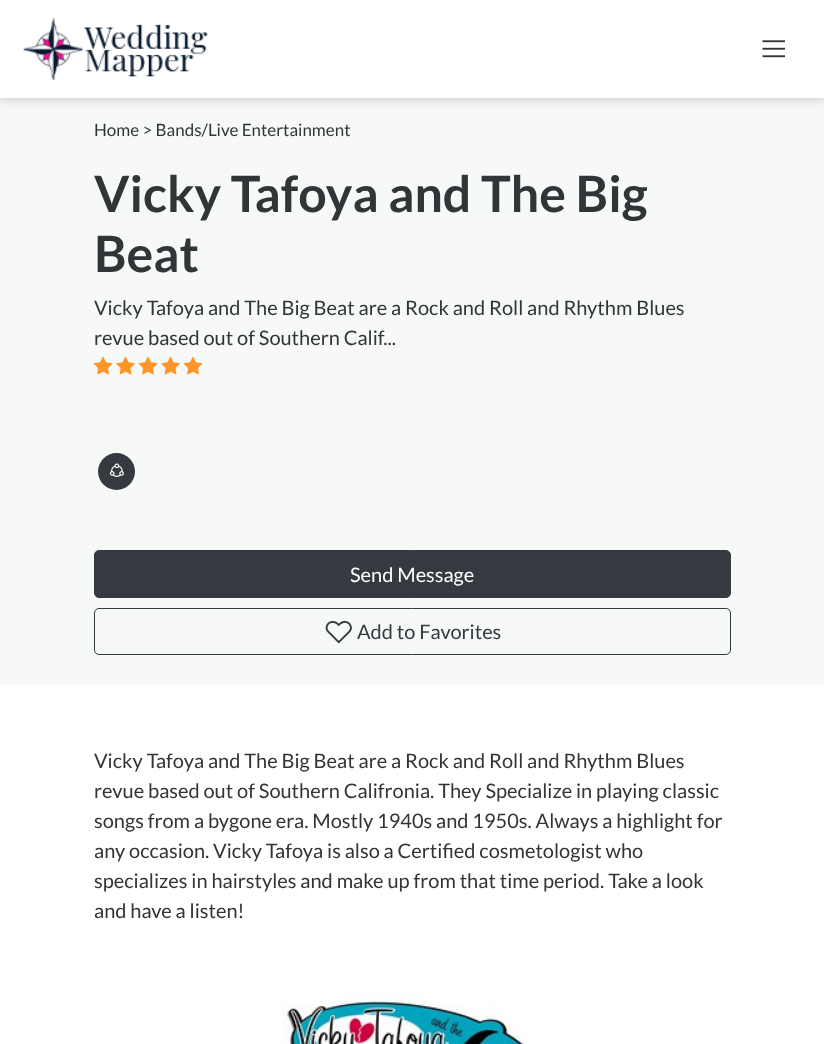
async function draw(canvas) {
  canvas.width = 824;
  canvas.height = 1044;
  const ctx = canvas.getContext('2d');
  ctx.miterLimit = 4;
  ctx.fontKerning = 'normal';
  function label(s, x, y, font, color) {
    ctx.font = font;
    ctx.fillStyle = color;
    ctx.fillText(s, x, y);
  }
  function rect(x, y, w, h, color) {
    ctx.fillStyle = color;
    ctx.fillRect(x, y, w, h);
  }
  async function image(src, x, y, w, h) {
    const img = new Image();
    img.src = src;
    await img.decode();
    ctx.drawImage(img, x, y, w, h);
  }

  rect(0, 0, 824, 1044, '#fff');
  rect(0, 99, 824, 586, '#f7f9f9');
  ctx.fillStyle = '#00000026';
  ctx.filter = 'blur(4px)';
  ctx.beginPath();
  ctx.rect(0, 3, 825, 98);
  ctx.fill();
  ctx.filter = 'none';
  rect(0, 0, 824, 98, '#fff');
  rect(0, 98, 824, 1, '#dee3e5');
  await image('assets/img1.png', 23, 17, 185, 64);
  await image('assets/img2.png', 762, 40, 23, 18);
  label('Home > Bands/Live Entertainment', 94, 136, '17px Lato', '#323537');
  label('Vicky Tafoya and The Big', 94, 212, 'bold 50px Lato', '#323537');
  label('Beat', 94, 272, 'bold 50px Lato', '#323537');
  label('Vicky Tafoya and The Big Beat are a Rock and Roll and Rhythm Blues', 94, 315, '20px Lato', '#323537');
  label('revue based out of Southern Calif...', 94, 345, '20px Lato', '#323537');
  await image('assets/img3.png', 93, 356, 20, 19);
  await image('assets/img4.png', 116, 356, 19, 19);
  await image('assets/img3.png', 138, 356, 20, 19);
  await image('assets/img4.png', 161, 356, 19, 19);
  await image('assets/img3.png', 183, 356, 20, 19);
  ctx.fillStyle = '#343a40';
  ctx.beginPath();
  ctx.arc(116.5, 471.5, 18.5, 0, 2 * Math.PI);
  ctx.fill();
  await image('assets/img5.png', 109, 463, 15, 14);
  ctx.beginPath();
  ctx.roundRect(94.5, 550.5, 636, 47, 4.5);
  ctx.fill();
  ctx.strokeStyle = '#343a40';
  ctx.stroke();
  label('Send Message', 350, 582, '20px Lato', '#fff');
  ctx.beginPath();
  ctx.roundRect(94.5, 608.5, 636, 46, 4.5);
  ctx.stroke();
  await image('assets/img6.png', 325, 620, 27, 24);
  label('Add to Favorites', 357, 639, '20px Lato', '#343a40');
  label('Vicky Tafoya and The Big Beat are a Rock and Roll and Rhythm Blues', 94, 768, '20px Lato', '#323537');
  label('revue based out of Southern Califronia. They Specialize in playing classic', 94, 798, '20px Lato', '#323537');
  label('songs from a bygone era. Mostly 1940s and 1950s. Always a highlight for', 94, 828, '20px Lato', '#323537');
  label('any occasion. Vicky Tafoya is also a Certified cosmetologist who', 94, 858, '20px Lato', '#323537');
  label('specializes in hairstyles and make up from that time period. Take a look', 94, 888, '20px Lato', '#323537');
  label('and have a listen!', 94, 918, '20px Lato', '#323537');
  await image('assets/img7.png', 282, 990, 245, 54);
}

draw(document.querySelector('canvas'));
